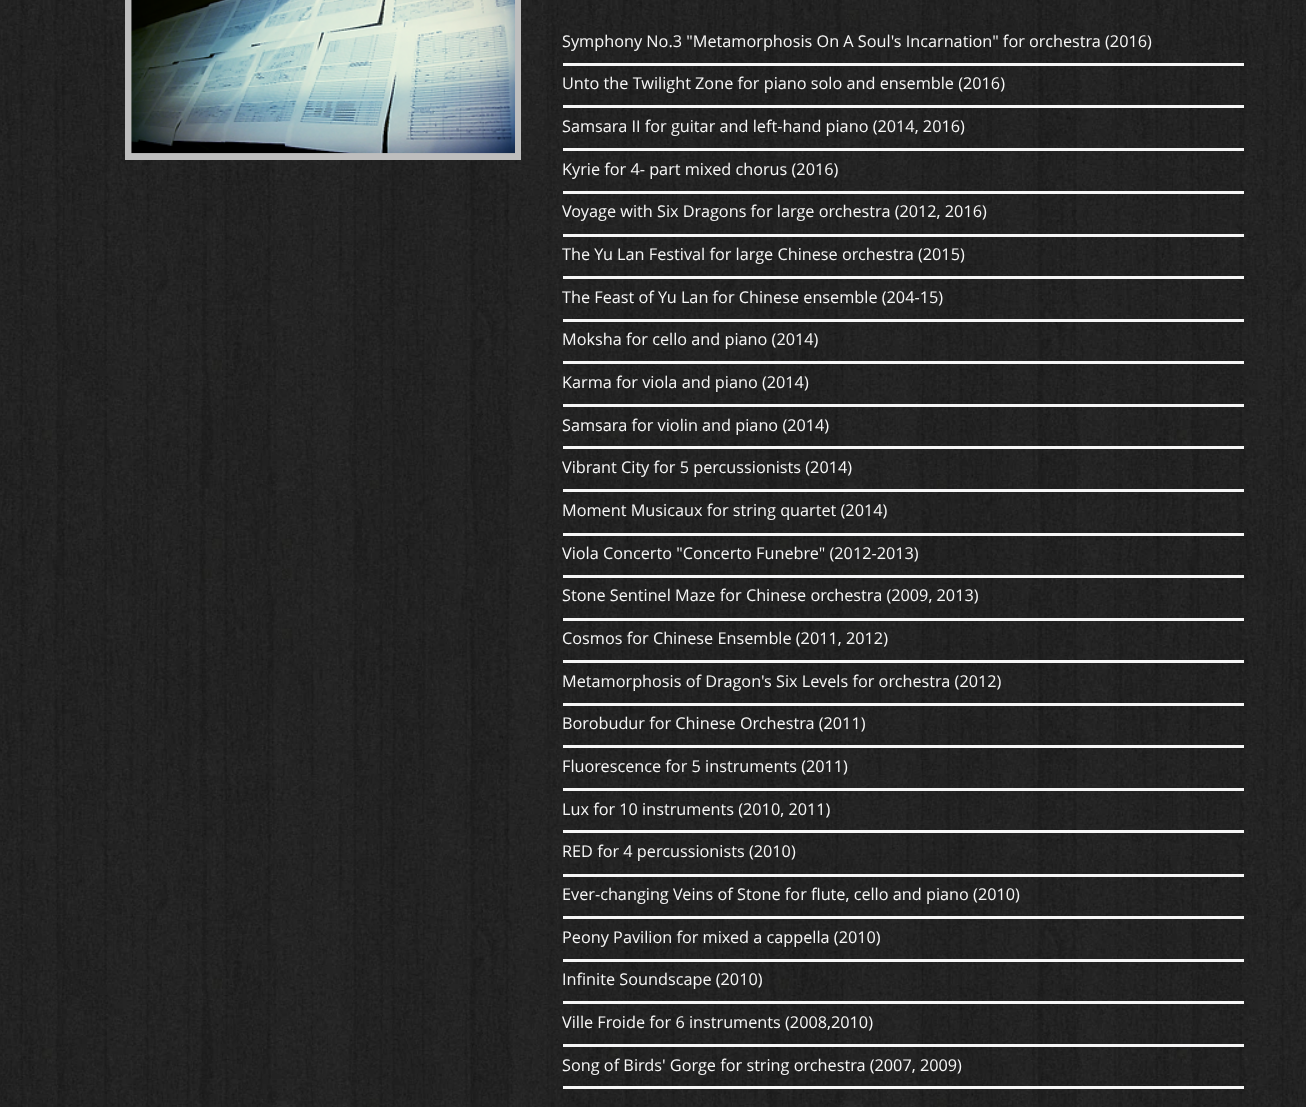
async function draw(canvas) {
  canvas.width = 1306;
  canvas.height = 1107;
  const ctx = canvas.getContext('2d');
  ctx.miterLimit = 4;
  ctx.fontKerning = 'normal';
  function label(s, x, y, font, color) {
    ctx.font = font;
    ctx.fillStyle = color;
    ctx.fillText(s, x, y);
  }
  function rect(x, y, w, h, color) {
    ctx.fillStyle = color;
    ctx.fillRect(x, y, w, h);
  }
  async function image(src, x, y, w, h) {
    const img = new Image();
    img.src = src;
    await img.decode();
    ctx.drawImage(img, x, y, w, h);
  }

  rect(0, 0, 1306, 1107, '#fff');
  await image('assets/img1.png', 0, 0, 1306, 1107);
  rect(125, 0, 396, 160, '#bebebe');
  await image('assets/img2.png', 131, 0, 384, 154);
  label('Symphony No.3 "Metamorphosis On A Soul\'s Incarnation" for orchestra (2016)', 562, 47, '16.25px Open Sans', '#f6f6f6');
  rect(563, 63, 681, 3, '#f6f6f6');
  label('Unto the Twilight Zone for piano solo and ensemble (2016)', 562, 89, '16.25px Open Sans', '#f6f6f6');
  rect(563, 105, 681, 3, '#f6f6f6');
  label('Samsara II for guitar and left-hand piano (2014, 2016)', 562, 132, '16.25px Open Sans', '#f6f6f6');
  rect(563, 148, 681, 3, '#f6f6f6');
  label('Kyrie for 4- part mixed chorus (2016)', 562, 175, '16.25px Open Sans', '#f6f6f6');
  rect(563, 191, 681, 3, '#f6f6f6');
  label('Voyage with Six Dragons for large orchestra (2012, 2016)', 562, 217, '16.25px Open Sans', '#f6f6f6');
  rect(563, 234, 681, 3, '#f6f6f6');
  label('The Yu Lan Festival for large Chinese orchestra (2015)', 562, 260, '16.25px Open Sans', '#f6f6f6');
  rect(563, 276, 681, 3, '#f6f6f6');
  label('The Feast of Yu Lan for Chinese ensemble (204-15)', 562, 303, '16.25px Open Sans', '#f6f6f6');
  rect(563, 319, 681, 3, '#f6f6f6');
  label('Moksha for cello and piano (2014)', 562, 345, '16.25px Open Sans', '#f6f6f6');
  rect(563, 361, 681, 3, '#f6f6f6');
  label('Karma for viola and piano (2014)', 562, 388, '16.25px Open Sans', '#f6f6f6');
  rect(563, 404, 681, 3, '#f6f6f6');
  label('Samsara for violin and piano (2014)', 562, 431, '16.25px Open Sans', '#f6f6f6');
  rect(563, 446, 681, 3, '#f6f6f6');
  label('Vibrant City for 5 percussionists (2014)', 562, 473, '16.25px Open Sans', '#f6f6f6');
  rect(563, 489, 681, 3, '#f6f6f6');
  label('Moment Musicaux for string quartet (2014)', 562, 516, '16.25px Open Sans', '#f6f6f6');
  rect(563, 533, 681, 3, '#f6f6f6');
  label('Viola Concerto "Concerto Funebre" (2012-2013)', 562, 559, '16.25px Open Sans', '#f6f6f6');
  rect(563, 575, 681, 3, '#f6f6f6');
  label('Stone Sentinel Maze for Chinese orchestra (2009, 2013)', 562, 601, '16.25px Open Sans', '#f6f6f6');
  rect(563, 618, 681, 3, '#f6f6f6');
  label('Cosmos for Chinese Ensemble (2011, 2012)', 562, 644, '16.25px Open Sans', '#f6f6f6');
  rect(563, 660, 681, 3, '#f6f6f6');
  label('Metamorphosis of Dragon\'s Six Levels for orchestra (2012)', 562, 687, '16.25px Open Sans', '#f6f6f6');
  rect(563, 703, 681, 3, '#f6f6f6');
  label('Borobudur for Chinese Orchestra (2011)', 562, 729, '16.25px Open Sans', '#f6f6f6');
  rect(563, 745, 681, 3, '#f6f6f6');
  label('Fluorescence for 5 instruments (2011)', 562, 772, '16.25px Open Sans', '#f6f6f6');
  rect(563, 788, 681, 3, '#f6f6f6');
  label('Lux for 10 instruments (2010, 2011)', 562, 815, '16.25px Open Sans', '#f6f6f6');
  rect(563, 830, 681, 3, '#f6f6f6');
  label('RED for 4 percussionists (2010)', 562, 857, '16.25px Open Sans', '#f6f6f6');
  rect(563, 874, 681, 3, '#f6f6f6');
  label('Ever-changing Veins of Stone for flute, cello and piano (2010)', 562, 900, '16.25px Open Sans', '#f6f6f6');
  rect(563, 916, 681, 3, '#f6f6f6');
  label('Peony Pavilion for mixed a cappella (2010)', 562, 943, '16.25px Open Sans', '#f6f6f6');
  rect(563, 959, 681, 3, '#f6f6f6');
  label('Infinite Soundscape (2010)', 562, 985, '16.25px Open Sans', '#f6f6f6');
  rect(563, 1001, 681, 3, '#f6f6f6');
  label('Ville Froide for 6 instruments (2008,2010)', 562, 1028, '16.25px Open Sans', '#f6f6f6');
  rect(563, 1044, 681, 3, '#f6f6f6');
  label('Song of Birds\' Gorge for string orchestra (2007, 2009)', 562, 1071, '16.25px Open Sans', '#f6f6f6');
  rect(563, 1086, 681, 3, '#f6f6f6');
}

draw(document.querySelector('canvas'));
